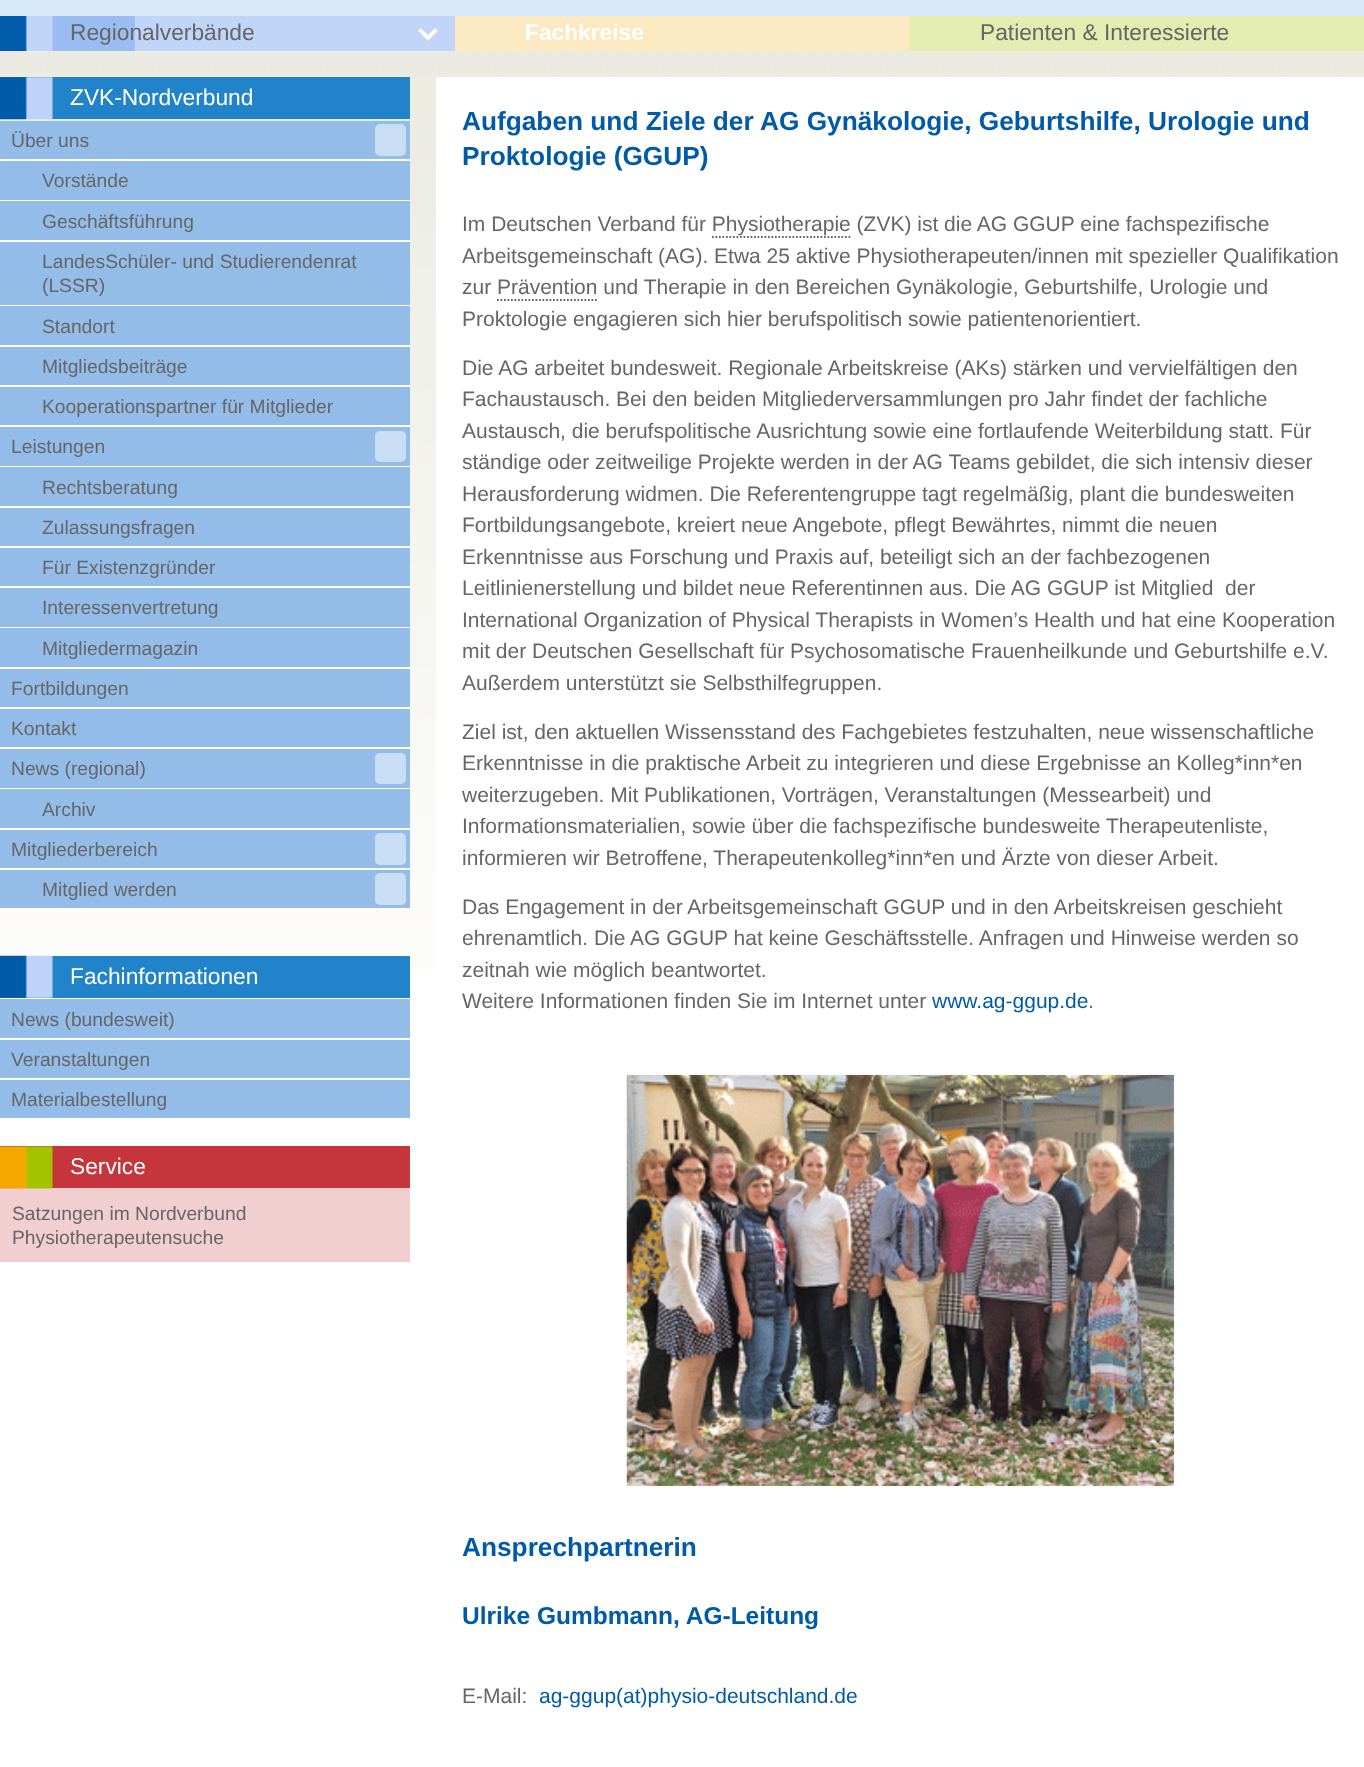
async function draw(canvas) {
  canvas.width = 1364;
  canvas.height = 1767;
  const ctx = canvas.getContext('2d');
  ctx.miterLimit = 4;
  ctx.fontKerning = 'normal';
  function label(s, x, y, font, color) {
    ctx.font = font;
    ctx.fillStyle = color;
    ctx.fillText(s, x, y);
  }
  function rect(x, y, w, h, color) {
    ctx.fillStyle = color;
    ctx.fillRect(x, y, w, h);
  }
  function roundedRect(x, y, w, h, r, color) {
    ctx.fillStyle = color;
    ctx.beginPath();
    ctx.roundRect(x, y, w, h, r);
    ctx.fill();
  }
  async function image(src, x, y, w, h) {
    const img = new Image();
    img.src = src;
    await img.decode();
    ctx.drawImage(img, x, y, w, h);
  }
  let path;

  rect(0, 0, 1364, 1767, '#fff');
  await image('assets/img1.png', 0, 51, 1364, 918);
  rect(0, 0, 1364, 16, '#d8eaf9');
  rect(25, 16, 430, 35, '#c1d5f9');
  await image('assets/img2.png', 0, 16, 135, 35);
  await image('assets/img3.png', 418, 28, 20, 13);
  label('Regionalverbände', 70, 40, '22.75px Liberation Sans', '#666');
  rect(455, 16, 455, 35, '#fbe9c1');
  label('Fachkreise', 525, 40, 'bold 22.75px Liberation Sans', '#fff');
  rect(910, 16, 454, 35, '#e3ecb1');
  label('Patienten‌ & Interessierte', 980, 40, '22.75px Liberation Sans', '#666');
  rect(0, 77, 410, 42, '#2183ca');
  await image('assets/img4.png', 0, 77, 53, 43);
  label('ZVK-Nordverbund', 70, 105, '22.75px Liberation Sans', '#fff');
  rect(0, 121, 410, 38, '#93bce8');
  rect(0, 159, 410, 2, '#fff');
  label('Über uns', 11, 147, '19.25px Liberation Sans', '#666');
  roundedRect(375, 124, 31, 32, 5, '#c9def4');
  rect(0, 161, 410, 39, '#93bce8');
  rect(0, 200, 410, 1, '#fff');
  label('Vorstände', 42, 187, '19.25px Liberation Sans', '#666');
  rect(0, 201, 410, 39, '#93bce8');
  rect(0, 240, 410, 2, '#fff');
  label('Geschäftsführung', 42, 228, '19.25px Liberation Sans', '#666');
  rect(0, 242, 410, 63, '#93bce8');
  rect(0, 305, 410, 1, '#fff');
  label('LandesSchüler- und Studierendenrat', 42, 268, '19.25px Liberation Sans', '#666');
  label('(LSSR)', 42, 292, '19.25px Liberation Sans', '#666');
  rect(0, 306, 410, 39, '#93bce8');
  rect(0, 345, 410, 2, '#fff');
  label('Standort', 42, 333, '19.25px Liberation Sans', '#666');
  rect(0, 347, 410, 38, '#93bce8');
  rect(0, 385, 410, 2, '#fff');
  label('Mitgliedsbeiträge', 42, 373, '19.25px Liberation Sans', '#666');
  rect(0, 387, 410, 38, '#93bce8');
  rect(0, 425, 410, 2, '#fff');
  label('Kooperationspartner für Mitglieder', 42, 413, '19.25px Liberation Sans', '#666');
  rect(0, 427, 410, 39, '#93bce8');
  rect(0, 466, 410, 1, '#fff');
  label('Leistungen', 11, 453, '19.25px Liberation Sans', '#666');
  roundedRect(375, 431, 31, 31, 5, '#c9def4');
  rect(0, 467, 410, 39, '#93bce8');
  rect(0, 506, 410, 2, '#fff');
  label('Rechtsberatung', 42, 494, '19.25px Liberation Sans', '#666');
  rect(0, 508, 410, 38, '#93bce8');
  rect(0, 546, 410, 2, '#fff');
  label('Zulassungsfragen', 42, 534, '19.25px Liberation Sans', '#666');
  rect(0, 548, 410, 38, '#93bce8');
  rect(0, 586, 410, 2, '#fff');
  label('Für Existenzgründer', 42, 574, '19.25px Liberation Sans', '#666');
  rect(0, 588, 410, 39, '#93bce8');
  rect(0, 627, 410, 1, '#fff');
  label('Interessenvertretung', 42, 614, '19.25px Liberation Sans', '#666');
  rect(0, 628, 410, 39, '#93bce8');
  rect(0, 667, 410, 2, '#fff');
  label('Mitgliedermagazin', 42, 655, '19.25px Liberation Sans', '#666');
  rect(0, 669, 410, 38, '#93bce8');
  rect(0, 707, 410, 2, '#fff');
  label('Fortbildungen', 11, 695, '19.25px Liberation Sans', '#666');
  rect(0, 709, 410, 38, '#93bce8');
  rect(0, 747, 410, 2, '#fff');
  label('Kontakt', 11, 735, '19.25px Liberation Sans', '#666');
  rect(0, 749, 410, 39, '#93bce8');
  rect(0, 788, 410, 1, '#fff');
  label('News (regional)', 11, 775, '19.25px Liberation Sans', '#666');
  roundedRect(375, 753, 31, 31, 5, '#c9def4');
  rect(0, 789, 410, 39, '#93bce8');
  rect(0, 828, 410, 2, '#fff');
  label('Archiv', 42, 816, '19.25px Liberation Sans', '#666');
  rect(0, 830, 410, 38, '#93bce8');
  rect(0, 868, 410, 2, '#fff');
  label('Mitgliederbereich', 11, 856, '19.25px Liberation Sans', '#666');
  roundedRect(375, 833, 31, 32, 5, '#c9def4');
  rect(0, 870, 410, 38, '#93bce8');
  rect(0, 908, 410, 2, '#fff');
  label('Mitglied werden', 42, 896, '19.25px Liberation Sans', '#666');
  roundedRect(375, 873, 31, 32, 5, '#c9def4');
  rect(0, 956, 410, 42, '#2183ca');
  await image('assets/img5.png', 0, 955, 53, 43);
  label('Fachinformationen', 70, 984, '22.75px Liberation Sans', '#fff');
  rect(0, 999, 410, 39, '#93bce8');
  label('News (bundesweit)', 11, 1026, '19.25px Liberation Sans', '#666');
  rect(0, 1040, 410, 38, '#93bce8');
  label('Veranstaltungen', 11, 1066, '19.25px Liberation Sans', '#666');
  rect(0, 1080, 410, 38, '#93bce8');
  label('Materialbestellung', 11, 1106, '19.25px Liberation Sans', '#666');
  rect(0, 1188, 410, 74, '#f1cfd0');
  rect(0, 1146, 410, 42, '#c6353b');
  await image('assets/img6.png', 0, 1146, 53, 43);
  label('Service', 70, 1174, '22.75px Liberation Sans', '#fff');
  label('Satzungen im Nordverbund', 12, 1220, '19.25px Liberation Sans', '#666');
  label('Physiotherapeutensuche', 12, 1244, '19.25px Liberation Sans', '#666');
  rect(436, 77, 928, 892, '#fff');
  label('Aufgaben und Ziele der AG Gynäkologie, Geburtshilfe, Urologie und', 462, 130, 'bold 26.25px Liberation Sans', '#005aaa');
  label('Proktologie (GGUP)', 462, 165, 'bold 26.25px Liberation Sans', '#005aaa');
  label('Im Deutschen Verband für Physiotherapie (ZVK) ist die AG GGUP eine fachspezifische', 462, 231, '21px Liberation Sans', '#666');
  path = new Path2D('M712 237H850.5');
  ctx.strokeStyle = '#666';
  ctx.lineWidth = 1.8;
  ctx.setLineDash([1.75, 1.75]);
  ctx.stroke(path);
  label('Arbeitsgemeinschaft (AG). Etwa 25 aktive Physiotherapeuten/innen mit spezieller Qualifikation', 462, 263, '21px Liberation Sans', '#666');
  label('zur Prävention und Therapie in den Bereichen Gynäkologie, Geburtshilfe, Urologie und', 462, 294, '21px Liberation Sans', '#666');
  path = new Path2D('M497 300H597');
  ctx.stroke(path);
  label('Proktologie engagieren sich hier berufspolitisch sowie patientenorientiert.', 462, 326, '21px Liberation Sans', '#666');
  label('Die AG arbeitet bundesweit. Regionale Arbeitskreise (AKs) stärken und vervielfältigen den', 462, 375, '21px Liberation Sans', '#666');
  label('Fachaustausch. Bei den beiden Mitgliederversammlungen pro Jahr findet der fachliche', 462, 406, '21px Liberation Sans', '#666');
  label('Austausch, die berufspolitische Ausrichtung sowie eine fortlaufende Weiterbildung statt. Für', 462, 438, '21px Liberation Sans', '#666');
  label('ständige oder zeitweilige Projekte werden in der AG Teams gebildet, die sich intensiv dieser', 462, 469, '21px Liberation Sans', '#666');
  label('Herausforderung widmen. Die Referentengruppe tagt regelmäßig, plant die bundesweiten', 462, 501, '21px Liberation Sans', '#666');
  label('Fortbildungsangebote, kreiert neue Angebote, pflegt Bewährtes, nimmt die neuen', 462, 532, '21px Liberation Sans', '#666');
  label('Erkenntnisse aus Forschung und Praxis auf, beteiligt sich an der fachbezogenen', 462, 564, '21px Liberation Sans', '#666');
  label('Leitlinienerstellung und bildet neue Referentinnen aus. Die AG GGUP ist Mitglied  der', 462, 595, '21px Liberation Sans', '#666');
  label('International Organization of Physical Therapists in Women’s Health und hat eine Kooperation', 462, 627, '21px Liberation Sans', '#666');
  label('mit der Deutschen Gesellschaft für Psychosomatische Frauenheilkunde und Geburtshilfe e.V.', 462, 658, '21px Liberation Sans', '#666');
  label('Außerdem unterstützt sie Selbsthilfegruppen.', 462, 690, '21px Liberation Sans', '#666');
  label('Ziel ist, den aktuellen Wissensstand des Fachgebietes festzuhalten, neue wissenschaftliche', 462, 739, '21px Liberation Sans', '#666');
  label('Erkenntnisse in die praktische Arbeit zu integrieren und diese Ergebnisse an Kolleg*inn*en', 462, 770, '21px Liberation Sans', '#666');
  label('weiterzugeben. Mit Publikationen, Vorträgen, Veranstaltungen (Messearbeit) und', 462, 802, '21px Liberation Sans', '#666');
  label('Informationsmaterialien, sowie über die fachspezifische bundesweite Therapeutenliste,', 462, 833, '21px Liberation Sans', '#666');
  label('informieren wir Betroffene, Therapeutenkolleg*inn*en und Ärzte von dieser Arbeit.', 462, 865, '21px Liberation Sans', '#666');
  label('Das Engagement in der Arbeitsgemeinschaft GGUP und in den Arbeitskreisen geschieht', 462, 914, '21px Liberation Sans', '#666');
  label('ehrenamtlich. Die AG GGUP hat keine Geschäftsstelle. Anfragen und Hinweise werden so', 462, 945, '21px Liberation Sans', '#666');
  label('zeitnah wie möglich beantwortet.', 462, 977, '21px Liberation Sans', '#666');
  label('Weitere Informationen finden Sie im Internet unter', 462, 1008, '21px Liberation Sans', '#666');
  label('www.ag-ggup.de', 932, 1008, '21px Liberation Sans', '#005aaa');
  label('.', 1088, 1008, '21px Liberation Sans', '#666');
  await image('assets/img7.png', 626, 1074, 549, 412);
  label('Ansprechpartnerin', 462, 1556, 'bold 26.25px Liberation Sans', '#005aaa');
  label('Ulrike Gumbmann, AG-Leitung', 462, 1624, 'bold 24.5px Liberation Sans', '#005aaa');
  label('E-Mail:', 462, 1703, '21px Liberation Sans', '#666');
  label('ag-ggup(at)physio-deutschland.de', 539, 1703, '21px Liberation Sans', '#005aaa');
}

draw(document.querySelector('canvas'));
